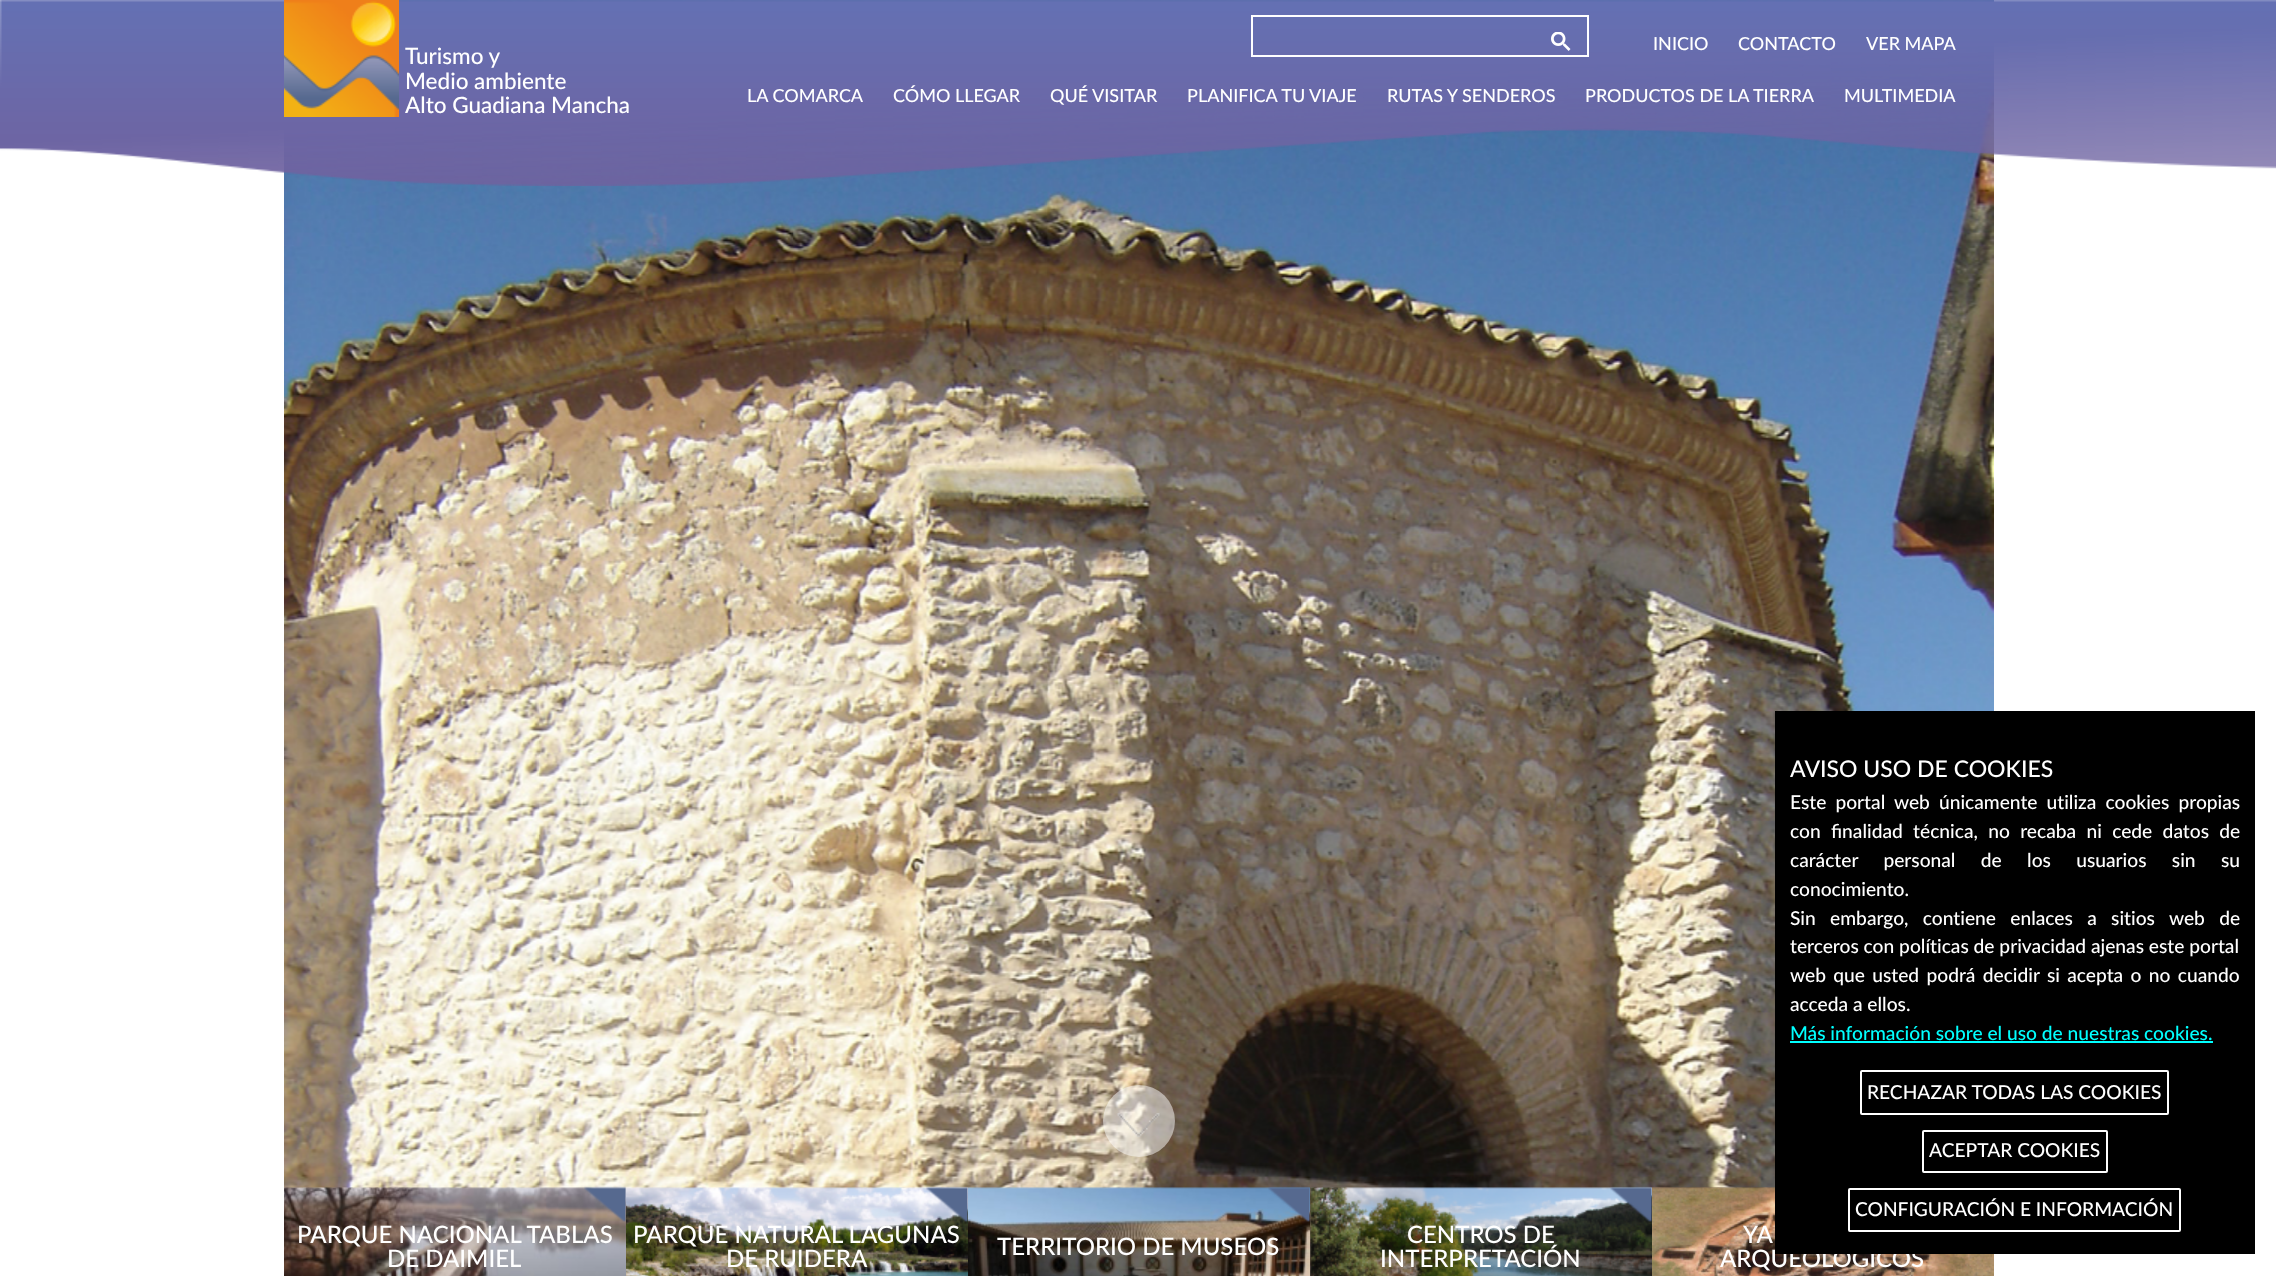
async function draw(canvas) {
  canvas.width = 2276;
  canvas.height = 1276;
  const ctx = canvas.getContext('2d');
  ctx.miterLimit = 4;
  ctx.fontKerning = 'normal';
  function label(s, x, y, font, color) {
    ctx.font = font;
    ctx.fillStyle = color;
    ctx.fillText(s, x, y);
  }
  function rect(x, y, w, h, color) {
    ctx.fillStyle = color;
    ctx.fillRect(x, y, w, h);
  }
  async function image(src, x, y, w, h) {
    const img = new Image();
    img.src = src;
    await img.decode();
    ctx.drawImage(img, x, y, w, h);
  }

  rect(0, 0, 2276, 1276, '#fff');
  await image('assets/img1.png', 284, 0, 1710, 1276);
  ctx.fillStyle = '#ffffff80';
  ctx.beginPath();
  ctx.arc(1139, 1121, 36, 0, 2 * Math.PI);
  ctx.fill();
  await image('assets/img2.png', 1117, 1113, 43, 24);
  await image('assets/img3.png', 0, 0, 2276, 186);
  await image('assets/img4.png', 284, 0, 115, 117);
  label('Turismo y', 405, 64, '500 22.5px Lato', '#fff');
  label('Medio ambiente', 405, 89, '500 22.5px Lato', '#fff');
  label('Alto Guadiana Mancha', 405, 113, '500 22.5px Lato', '#fff');
  ctx.strokeStyle = '#fff';
  ctx.lineWidth = 2;
  ctx.strokeRect(1252, 16, 336, 40);
  await image('assets/img5.png', 1551, 32, 20, 19);
  label('INICIO', 1653, 50, '500 18px Lato', '#fff');
  label('CONTACTO', 1738, 50, '500 18px Lato', '#fff');
  label('VER MAPA', 1866, 50, '500 18px Lato', '#fff');
  label('LA COMARCA', 747, 102, '500 18px Lato', '#fff');
  label('CÓMO LLEGAR', 893, 102, '500 18px Lato', '#fff');
  label('QUÉ VISITAR', 1050, 102, '500 18px Lato', '#fff');
  label('PLANIFICA TU VIAJE', 1187, 102, '500 18px Lato', '#fff');
  label('RUTAS Y SENDEROS', 1387, 102, '500 18px Lato', '#fff');
  label('PRODUCTOS DE LA TIERRA', 1585, 102, '500 18px Lato', '#fff');
  label('MULTIMEDIA', 1844, 102, '500 18px Lato', '#fff');
  await image('assets/img7.png', 284, 1187, 342, 89);
  await image('assets/img6.png', 584, 1186, 42, 36);
  label('PARQUE NACIONAL TABLAS', 297, 1243, '500 24px Lato', '#fff');
  label('DE DAIMIEL', 387, 1267, '500 24px Lato', '#fff');
  await image('assets/img9.png', 626, 1187, 342, 89);
  await image('assets/img8.png', 926, 1186, 42, 36);
  label('PARQUE NATURAL LAGUNAS', 633, 1243, '500 24px Lato', '#fff');
  label('DE RUIDERA', 726, 1267, '500 24px Lato', '#fff');
  await image('assets/img11.png', 968, 1187, 342, 89);
  await image('assets/img10.png', 1268, 1186, 42, 36);
  label('TERRITORIO DE MUSEOS', 997, 1255, '500 24px Lato', '#fff');
  await image('assets/img13.png', 1310, 1187, 342, 89);
  await image('assets/img12.png', 1610, 1186, 42, 36);
  label('CENTROS DE', 1407, 1243, '500 24px Lato', '#fff');
  label('INTERPRETACIÓN', 1380, 1267, '500 24px Lato', '#fff');
  await image('assets/img14.png', 1652, 1187, 342, 89);
  label('YA', 1743, 1243, '500 24px Lato', '#fff');
  label('ARQUEOLÓGICOS', 1720, 1267, '500 24px Lato', '#fff');
  rect(1775, 711, 480, 543, '#000');
  label('AVISO USO DE COOKIES', 1790, 777, '500 23px Lato', '#fff');
  ctx.wordSpacing = '4.25px';
  label('Este portal web únicamente utiliza cookies propias', 1790, 809, '500 19.2px Lato', '#fff');
  ctx.wordSpacing = '5.5px';
  label('con finalidad técnica, no recaba ni cede datos de', 1790, 838, '500 19.2px Lato', '#fff');
  ctx.wordSpacing = '20.5px';
  label('carácter personal de los usuarios sin su', 1790, 867, '500 19.2px Lato', '#fff');
  ctx.wordSpacing = '0px';
  label('conocimiento.', 1790, 896, '500 19.2px Lato', '#fff');
  ctx.wordSpacing = '9.5px';
  label('Sin embargo, contiene enlaces a sitios web de', 1790, 925, '500 19.2px Lato', '#fff');
  ctx.wordSpacing = '0px';
  label('terceros con políticas de privacidad ajenas este portal', 1790, 953, '500 19.2px Lato', '#fff');
  ctx.wordSpacing = '2.5px';
  label('web que usted podrá decidir si acepta o no cuando', 1790, 982, '500 19.2px Lato', '#fff');
  ctx.wordSpacing = '0px';
  label('acceda a ellos.', 1790, 1011, '500 19.2px Lato', '#fff');
  label('Más información sobre el uso de nuestras cookies.', 1790, 1040, '500 19.2px Lato', '#0ff');
  rect(1790, 1041, 423, 2, '#0ff');
  ctx.beginPath();
  ctx.roundRect(1861, 1071, 307, 43, 1);
  ctx.stroke();
  label('RECHAZAR TODAS LAS COOKIES', 1867, 1099, '500 19.2px Lato', '#fff');
  ctx.beginPath();
  ctx.roundRect(1923, 1131, 184, 41, 1);
  ctx.stroke();
  label('ACEPTAR COOKIES', 1929, 1157, '500 19.2px Lato', '#fff');
  ctx.beginPath();
  ctx.roundRect(1849, 1189, 331, 42, 1);
  ctx.stroke();
  label('CONFIGURACIÓN E INFORMACIÓN', 1855, 1216, '500 19.2px Lato', '#fff');
}

draw(document.querySelector('canvas'));
